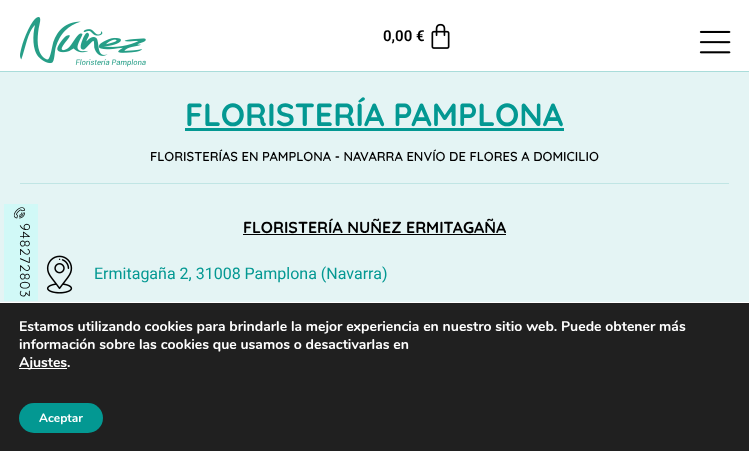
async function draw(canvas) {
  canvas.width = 749;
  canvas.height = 451;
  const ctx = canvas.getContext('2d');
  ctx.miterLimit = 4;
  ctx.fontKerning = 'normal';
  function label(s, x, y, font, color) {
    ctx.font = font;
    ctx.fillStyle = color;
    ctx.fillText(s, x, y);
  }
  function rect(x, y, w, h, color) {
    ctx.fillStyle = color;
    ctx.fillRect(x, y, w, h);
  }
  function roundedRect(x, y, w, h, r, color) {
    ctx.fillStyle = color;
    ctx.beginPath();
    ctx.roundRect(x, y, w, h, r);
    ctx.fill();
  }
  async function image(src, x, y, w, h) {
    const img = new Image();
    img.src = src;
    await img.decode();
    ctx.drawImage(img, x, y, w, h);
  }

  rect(0, 0, 749, 451, '#e4f4f4');
  rect(0, 0, 749, 71, '#fff');
  rect(0, 71, 749, 1, '#a9dcda');
  await image('assets/img1.png', 20, 17, 126, 50);
  label('0,00 €', 383, 41, '600 15px Roboto', '#000');
  await image('assets/img2.png', 431, 23, 19, 26);
  await image('assets/img3.png', 699, 30, 32, 24);
  rect(4, 204, 34, 97, '#d1f9f7');
  await image('assets/img4.png', 13, 207, 12, 12);
  ctx.letterSpacing = '0.75px';
  ctx.font = '14px Quicksand';
  ctx.fillStyle = '#000';
  ctx.save();
  ctx.translate(20, 223);
  ctx.rotate(90 * Math.PI / 180);
  ctx.fillText('948272803', 0, 0);
  ctx.restore();
  ctx.letterSpacing = '0px';
  label('FLORISTERÍA PAMPLONA', 185, 126, 'bold 32px Quicksand', '#039892');
  rect(185, 128, 379, 3, '#039892');
  label('FLORISTERÍAS EN PAMPLONA - NAVARRA ENVÍO DE FLORES A DOMICILIO', 150, 161, '600 13px Quicksand', '#000');
  rect(20, 183, 709, 1, '#c0e5e4');
  label('FLORISTERÍA NUÑEZ ERMITAGAÑA', 243, 233, 'bold 16px Quicksand', '#000');
  rect(243, 234, 263, 1, '#000');
  await image('assets/img5.png', 46, 255, 27, 39);
  label('Ermitagaña 2, 31008 Pamplona (Navarra)', 94, 279, '16px Roboto', '#039892');
  rect(0, 303, 749, 148, '#202020');
  rect(0, 302, 749, 1, '#fff');
  label('Estamos utilizando cookies para brindarle la mejor experiencia en nuestro sitio web. Puede obtener más', 19, 331, 'bold 14px Nunito', '#fff');
  label('información sobre las cookies que usamos o desactivarlas en', 19, 349, 'bold 14px Nunito', '#fff');
  rect(19, 368, 48, 1, '#fff');
  label('Ajustes.', 19, 367, 'bold 14px Nunito', '#fff');
  roundedRect(19, 403, 84, 30, 15, '#039892');
  label('Aceptar', 39, 422, 'bold 12px Nunito', '#fff');
}

draw(document.querySelector('canvas'));
